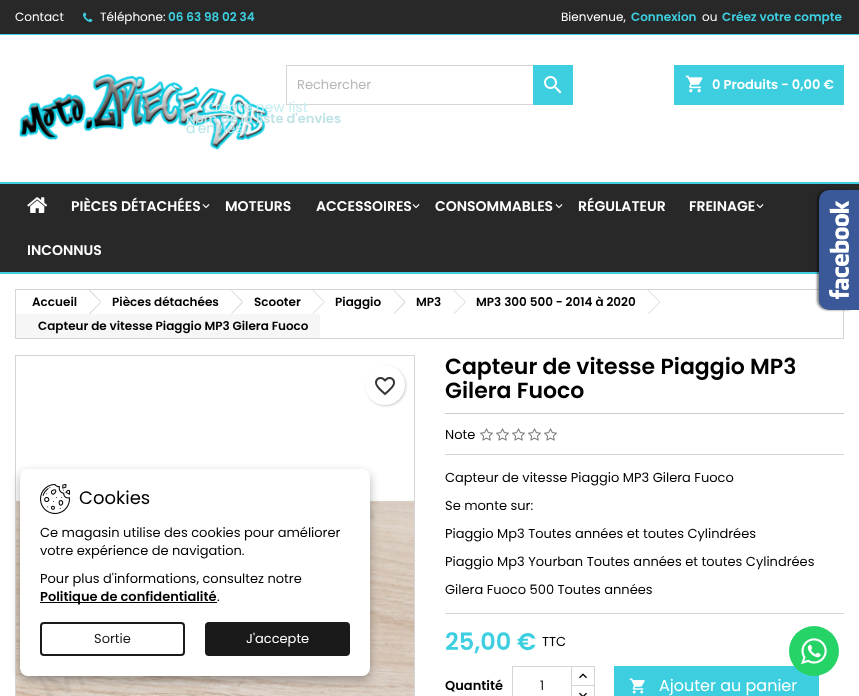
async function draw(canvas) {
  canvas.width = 859;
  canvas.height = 696;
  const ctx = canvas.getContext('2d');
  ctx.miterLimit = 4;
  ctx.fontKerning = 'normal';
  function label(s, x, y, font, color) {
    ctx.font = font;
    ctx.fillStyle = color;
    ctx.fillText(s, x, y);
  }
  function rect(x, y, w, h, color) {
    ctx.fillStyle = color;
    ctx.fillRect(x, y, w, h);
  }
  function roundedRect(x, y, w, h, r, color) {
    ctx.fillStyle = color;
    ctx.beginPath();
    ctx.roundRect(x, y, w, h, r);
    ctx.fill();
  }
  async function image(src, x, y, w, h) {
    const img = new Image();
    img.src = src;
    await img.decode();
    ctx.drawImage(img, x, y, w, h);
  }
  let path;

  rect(0, 0, 859, 696, '#fff');
  rect(0, 0, 859, 34, '#282828');
  rect(0, 34, 859, 1, '#3dcfe0');
  label('Contact', 15, 21, '12px Poppins', '#fff');
  await image('assets/img1.png', 83, 12, 10, 10);
  label('Téléphone:', 100, 21, '12px Poppins', '#fff');
  label('06 63 98 02 34', 168, 21, '600 12px Poppins', '#3dcfe0');
  label('Bienvenue,', 561, 21, '12px Poppins', '#fff');
  label('Connexion', 631, 21, '600 12px Poppins', '#3dcfe0');
  label('ou', 702, 21, '12px Poppins', '#fff');
  label('Créez votre compte', 722, 21, '600 12px Poppins', '#3dcfe0');
  await image('assets/img2.png', 19, 74, 249, 76);
  ctx.strokeStyle = '#d6d4d4';
  ctx.strokeRect(286.5, 65.5, 286, 39);
  label('Rechercher', 297, 89, '13px Poppins', '#b7b7b7');
  rect(533, 65, 40, 40, '#3dcfe0');
  await image('assets/img3.png', 544, 76, 18, 18);
  rect(674, 65, 170, 40, '#3dcfe0');
  await image('assets/img4.png', 685, 75, 18, 18);
  label('0 Produits - 0,00 €', 712, 89, '600 13px Poppins', '#fff');
  rect(0, 184, 859, 88, '#282828');
  rect(0, 182, 859, 2, '#3dcfe0');
  rect(0, 272, 819, 2, '#3dcfe0');
  await image('assets/img5.png', 27, 197, 21, 16);
  label('PIÈCES DÉTACHÉES', 71, 211, '600 14px Poppins', '#fff');
  await image('assets/img6.png', 202, 204, 8, 5);
  label('MOTEURS', 225, 211, '600 14px Poppins', '#fff');
  label('ACCESSOIRES', 316, 211, '600 14px Poppins', '#fff');
  await image('assets/img6.png', 412, 204, 8, 5);
  label('CONSOMMABLES', 435, 211, '600 14px Poppins', '#fff');
  await image('assets/img6.png', 555, 204, 8, 5);
  label('RÉGULATEUR', 578, 211, '600 14px Poppins', '#fff');
  label('FREINAGE', 689, 211, '600 14px Poppins', '#fff');
  await image('assets/img6.png', 756, 204, 8, 5);
  label('INCONNUS', 27, 255, '600 14px Poppins', '#fff');
  label('Create new list', 204, 112, '14px Poppins', '#c6edf1');
  label('Nom de la liste d\'envies', 186, 123, '600 13px Poppins', '#c0e3e7');
  label('d\'envies.', 186, 133, '14px Poppins', '#b8e4e9');
  ctx.strokeRect(15.5, 355.5, 399, 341);
  await image('assets/img10.png', 16, 498, 398, 198);
  ctx.fillStyle = '#0000004d';
  ctx.filter = 'blur(5px)';
  ctx.beginPath();
  ctx.roundRect(20, 473, 350, 207, 8);
  ctx.fill();
  ctx.filter = 'none';
  roundedRect(20, 469, 350, 207, 8, '#fff');
  await image('assets/img7.png', 40, 484, 30, 30);
  label('Cookies', 79, 504, '18px Poppins', '#000');
  label('Ce magasin utilise des cookies pour améliorer', 40, 537, '13px Poppins', '#000');
  label('votre expérience de navigation.', 40, 555, '13px Poppins', '#000');
  label('Pour plus d\'informations, consultez notre', 40, 583, '13px Poppins', '#000');
  rect(40, 602, 177, 1, '#000');
  label('Politique de confidentialité', 40, 601, '600 13px Poppins', '#000');
  label('.', 217, 601, '13px Poppins', '#000');
  ctx.beginPath();
  ctx.roundRect(41, 623, 143, 32, 3);
  ctx.strokeStyle = '#1b1a1b';
  ctx.lineWidth = 2;
  ctx.stroke();
  label('Sortie', 94, 643, '13px Poppins', '#1b1a1b');
  ctx.beginPath();
  ctx.roundRect(206, 623, 143, 32, 3);
  ctx.fill();
  ctx.stroke();
  label('J\'accepte', 246, 643, '13px Poppins', '#fff');
  rect(614, 666, 205, 30, '#3dcfe0');
  ctx.fillStyle = '#25d366';
  ctx.beginPath();
  ctx.arc(814, 651, 25, 0, 2 * Math.PI);
  ctx.fill();
  await image('assets/img8.png', 801, 638, 26, 27);
  ctx.strokeStyle = '#d6d4d4';
  ctx.lineWidth = 1;
  ctx.strokeRect(15.5, 289.5, 828, 49);
  ctx.fillStyle = '#00000080';
  ctx.filter = 'blur(1px)';
  ctx.beginPath();
  ctx.roundRect(817, 190, 40, 120, 10);
  ctx.fill();
  ctx.filter = 'none';
  ctx.fillStyle = '#3b5998';
  ctx.beginPath();
  ctx.roundRect(819, 190, 40, 120, [10, 0, 0, 10]);
  ctx.fill();
  await image('assets/img9.png', 829, 201, 20, 98);
  label('Accueil', 32, 306, '600 12px Poppins', '#000');
  ctx.fillStyle = '#d6d4d4';
  path = new Path2D('M90 290L101 301.5L100.5 302L89 290.5ZM100.5 302L101 302.5L90 314L89 313.5Z');
  ctx.fill(path);
  label('Pièces détachées', 112, 306, '600 12px Poppins', '#000');
  ctx.fillStyle = '#d6d4d4';
  path = new Path2D('M231.5 290L243 301.5L242 302L231 290.5ZM242 302L243 302.5L231.5 314L231 313.5Z');
  ctx.fill(path);
  label('Scooter', 254, 306, '600 12px Poppins', '#000');
  ctx.fillStyle = '#d6d4d4';
  path = new Path2D('M313 290L324.5 301.5L324 302L312.5 290.5ZM324 302L324.5 302.5L313 314L312.5 313.5Z');
  ctx.fill(path);
  label('Piaggio', 335, 306, '600 12px Poppins', '#000');
  ctx.fillStyle = '#d6d4d4';
  path = new Path2D('M394 290L405.5 301.5L404.5 302L393.5 290.5ZM404.5 302L405.5 302.5L394 314L393.5 313.5Z');
  ctx.fill(path);
  label('MP3', 416, 306, '600 12px Poppins', '#000');
  ctx.fillStyle = '#d6d4d4';
  path = new Path2D('M454 290L465.5 301.5L465 302L453.5 290.5ZM465 302L465.5 302.5L454 314L453.5 313.5Z');
  ctx.fill(path);
  label('MP3 300 500 - 2014 à 2020', 476, 306, '600 12px Poppins', '#000');
  ctx.fillStyle = '#d6d4d4';
  path = new Path2D('M648.5 290L660 301.5L659.5 302L648 290.5ZM659.5 302L660 302.5L648.5 314L648 313.5Z');
  ctx.fill(path);
  rect(16, 314, 304, 24, '#f6f6f6');
  label('Capteur de vitesse Piaggio MP3 Gilera Fuoco', 38, 330, '600 12px Poppins', '#000');
  label('Capteur de vitesse Piaggio MP3', 445, 374, '600 22px Poppins', '#000');
  label('Gilera Fuoco', 445, 398, '600 22px Poppins', '#000');
  rect(445, 413, 399, 1, '#ccc');
  label('Note', 445, 439, '13px Poppins', '#000');
  await image('assets/img11.png', 480, 428, 13, 13);
  await image('assets/img11.png', 496, 428, 13, 13);
  await image('assets/img11.png', 512, 428, 13, 13);
  await image('assets/img11.png', 528, 428, 13, 13);
  await image('assets/img11.png', 544, 428, 13, 13);
  rect(445, 454, 399, 1, '#d6d4d4');
  label('Capteur de vitesse Piaggio MP3 Gilera Fuoco', 445, 482, '13px Poppins', '#000');
  label('Se monte sur:', 445, 510, '13px Poppins', '#000');
  label('Piaggio Mp3 Toutes années et toutes Cylindrées', 445, 538, '13px Poppins', '#000');
  label('Piaggio Mp3 Yourban Toutes années et toutes Cylindrées', 445, 566, '13px Poppins', '#000');
  label('Gilera Fuoco 500 Toutes années', 445, 594, '13px Poppins', '#000');
  rect(445, 613, 399, 1, '#d6d4d4');
  label('25,00 €', 445, 650, '600 24px Poppins', '#3dcfe0');
  label('TTC', 542, 646, '13px Poppins', '#000');
  ctx.fillStyle = '#00000033';
  ctx.filter = 'blur(1px)';
  ctx.beginPath();
  ctx.roundRect(366, 366, 40, 40, 20);
  ctx.fill();
  ctx.filter = 'none';
  ctx.fillStyle = '#fff';
  ctx.beginPath();
  ctx.arc(385, 385, 20, 0, 2 * Math.PI);
  ctx.fill();
  await image('assets/img12.png', 375, 377, 20, 19);
  label('Quantité', 445, 690, '600 13px Poppins', '#000');
  ctx.strokeRect(571.5, 666.5, 23, 20);
  rect(572, 686, 22, 1, '#fff');
  ctx.strokeRect(571.5, 685.5, 23, 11);
  ctx.strokeRect(512.5, 666.5, 59, 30);
  label('1', 540, 690, '13px Poppins', '#232323');
  await image('assets/img13.png', 579, 673, 8, 6);
  await image('assets/img14.png', 579, 692, 8, 4);
  await image('assets/img15.png', 629, 678, 16, 16);
  label('Ajouter au panier', 659, 691, '16px Poppins', '#fff');
}

draw(document.querySelector('canvas'));
